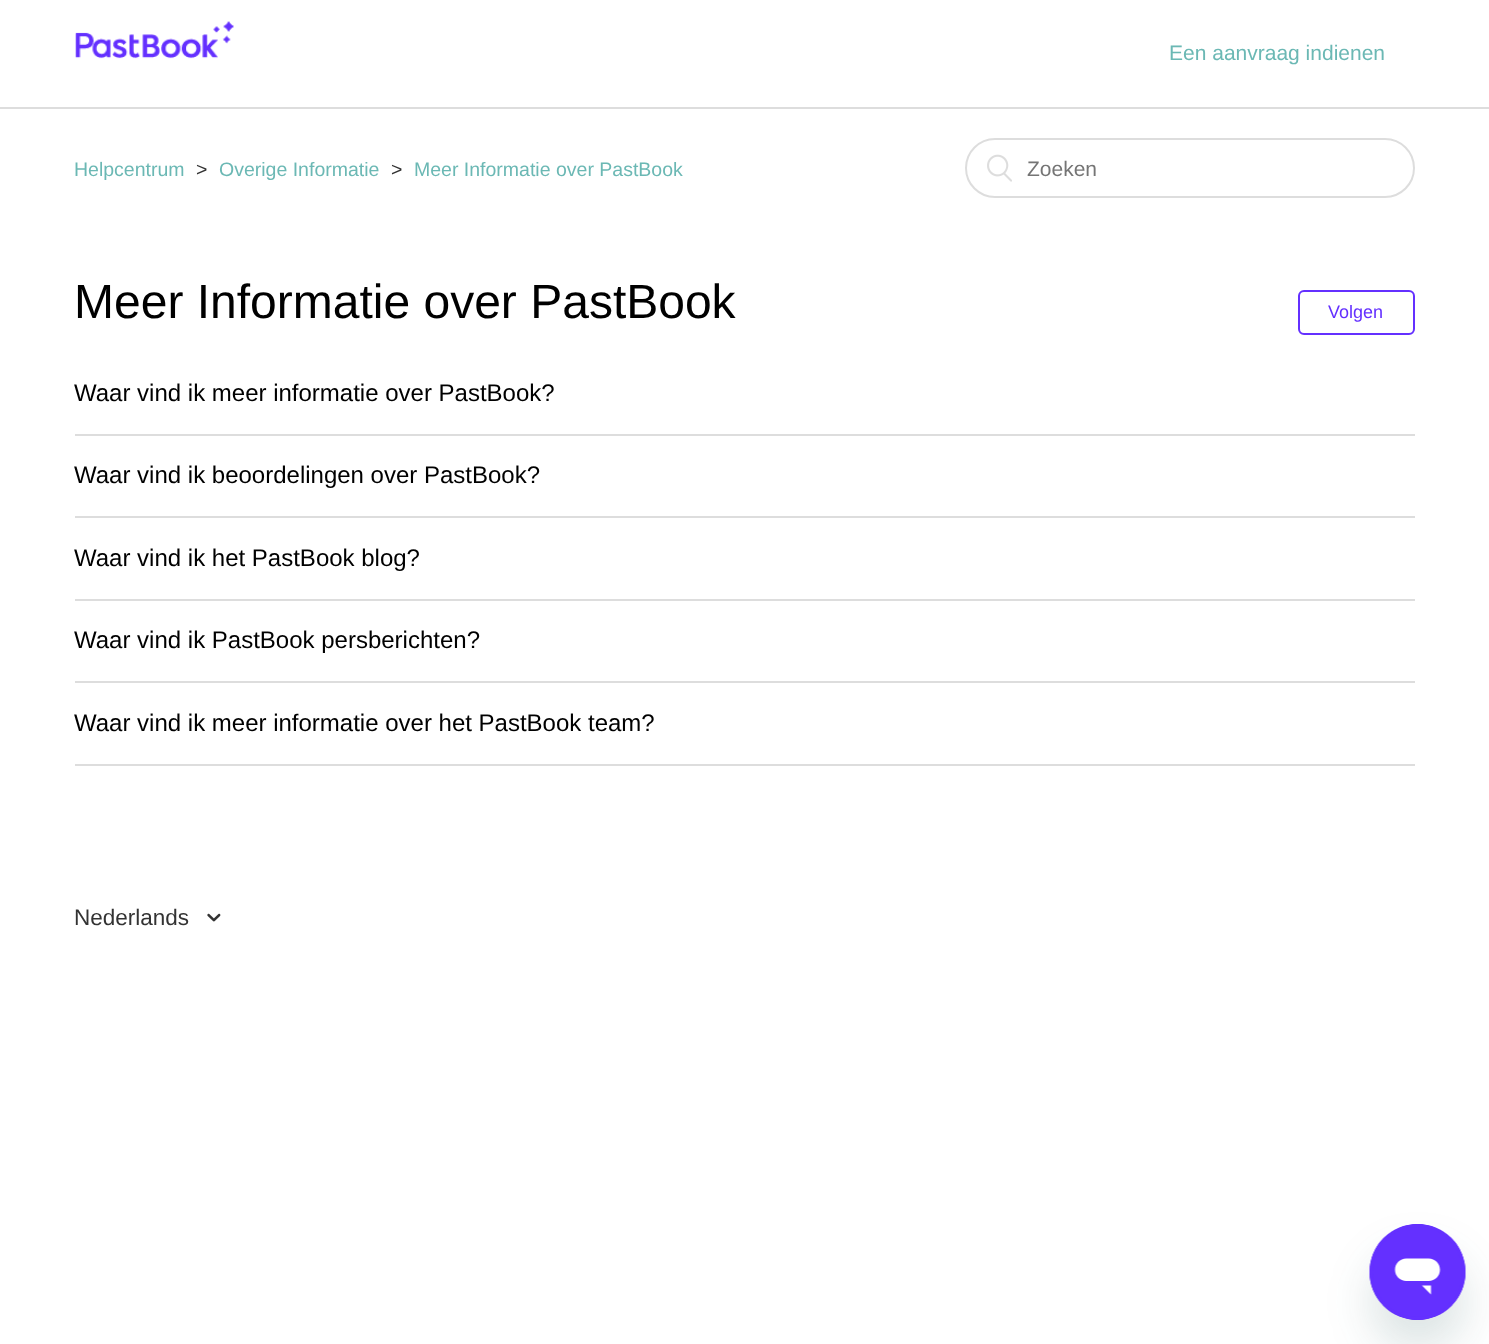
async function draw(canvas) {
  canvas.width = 1489;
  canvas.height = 1344;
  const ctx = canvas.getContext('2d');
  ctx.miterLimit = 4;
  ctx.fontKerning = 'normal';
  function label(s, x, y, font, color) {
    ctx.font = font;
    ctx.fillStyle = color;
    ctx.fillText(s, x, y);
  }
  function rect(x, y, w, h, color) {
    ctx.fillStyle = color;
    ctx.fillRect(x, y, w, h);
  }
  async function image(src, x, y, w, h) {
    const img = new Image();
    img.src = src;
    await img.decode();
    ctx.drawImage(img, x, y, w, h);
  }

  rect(0, 0, 1489, 1344, '#fff');
  await image('assets/img1.png', 75, 21, 159, 38);
  label('Een aanvraag indienen', 1169, 60, '21px Liberation Sans', '#6bb8b4');
  rect(0, 107, 1489, 2, '#ddd');
  label('Helpcentrum', 74, 176, '19.5px Liberation Sans', '#6bb8b4');
  label('>', 196, 176, '19.5px Liberation Sans', '#333');
  label('Overige Informatie', 219, 176, '19.5px Liberation Sans', '#6bb8b4');
  label('>', 391, 176, '19.5px Liberation Sans', '#333');
  label('Meer Informatie over PastBook', 414, 176, '19.5px Liberation Sans', '#6bb8b4');
  ctx.beginPath();
  ctx.roundRect(966, 139, 448, 58, 29);
  ctx.strokeStyle = '#ddd';
  ctx.lineWidth = 2;
  ctx.stroke();
  await image('assets/img2.png', 987, 154, 25, 28);
  label('Zoeken', 1027, 176, '21px Liberation Sans', '#757575');
  label('Meer Informatie over PastBook', 74, 318, '48px Liberation Sans', '#000');
  ctx.beginPath();
  ctx.roundRect(1299, 291, 115, 43, 5);
  ctx.strokeStyle = '#6430ff';
  ctx.stroke();
  label('Volgen', 1328, 318, '18px Liberation Sans', '#6430ff');
  rect(75, 434, 1340, 2, '#ddd');
  label('Waar vind ik meer informatie over PastBook?', 74, 401, '24px Liberation Sans', '#000');
  rect(75, 516, 1340, 2, '#ddd');
  label('Waar vind ik beoordelingen over PastBook?', 74, 483, '24px Liberation Sans', '#000');
  rect(75, 599, 1340, 2, '#ddd');
  label('Waar vind ik het PastBook blog?', 74, 566, '24px Liberation Sans', '#000');
  rect(75, 681, 1340, 2, '#ddd');
  label('Waar vind ik PastBook persberichten?', 74, 648, '24px Liberation Sans', '#000');
  rect(75, 764, 1340, 2, '#ddd');
  label('Waar vind ik meer informatie over het PastBook team?', 74, 731, '24px Liberation Sans', '#000');
  label('Nederlands', 74, 925, '22.5px Liberation Sans', '#333');
  await image('assets/img3.png', 207, 913, 14, 9);
  ctx.fillStyle = '#17494d26';
  ctx.filter = 'blur(22.5px)';
  ctx.beginPath();
  ctx.roundRect(1370, 1254, 96, 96, 48);
  ctx.fill();
  ctx.filter = 'none';
  await image('assets/img4.png', 1369, 1224, 97, 96);
}

draw(document.querySelector('canvas'));
